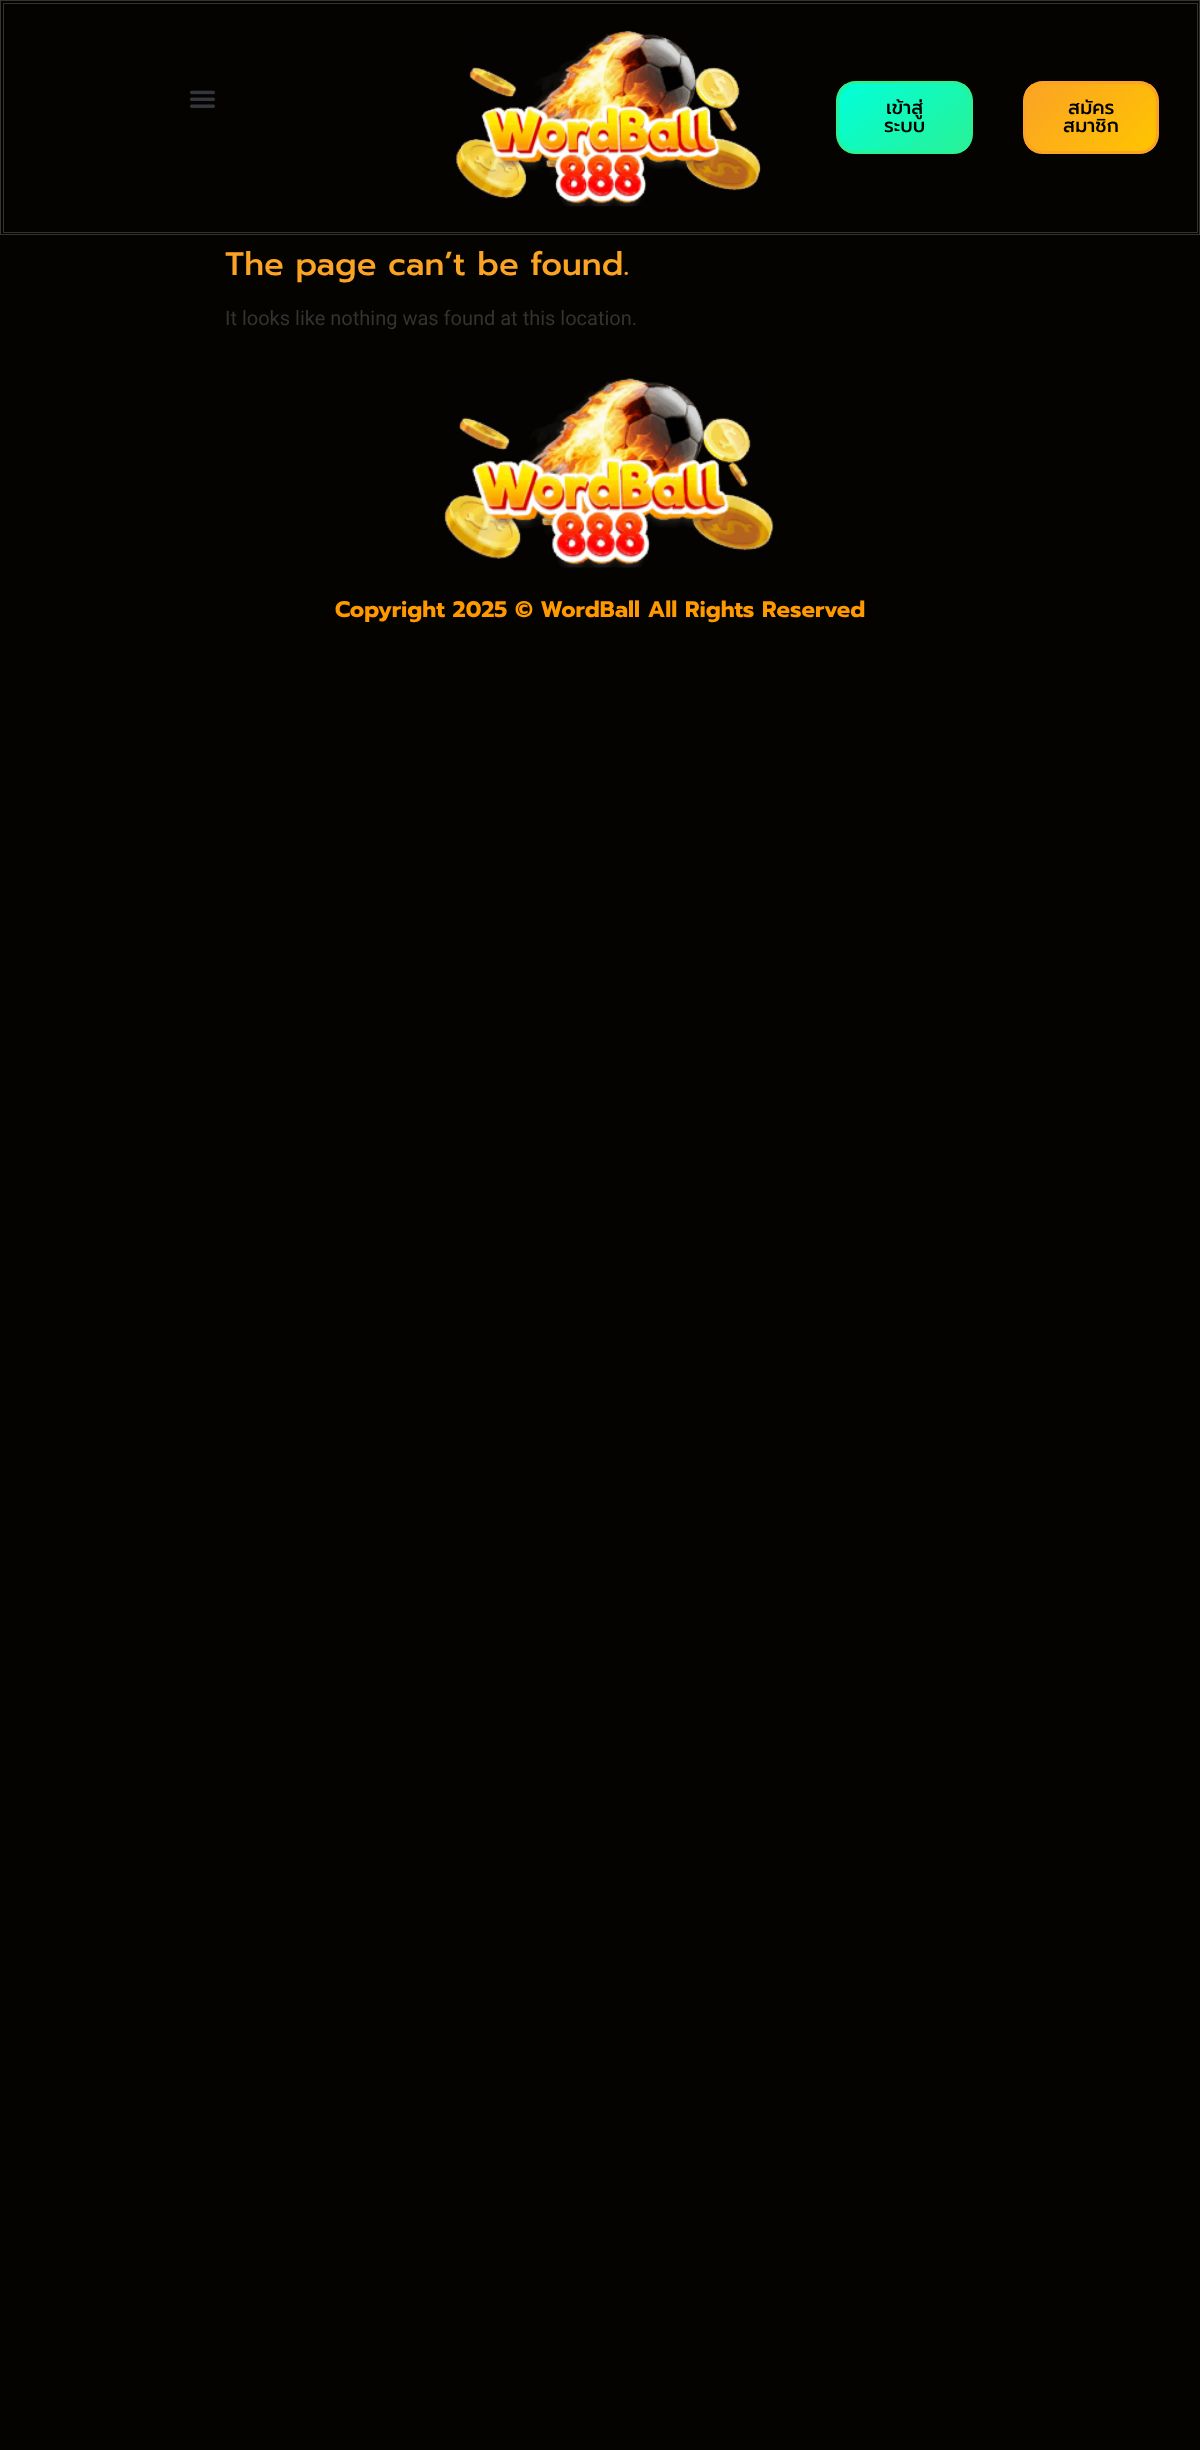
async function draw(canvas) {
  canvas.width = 1200;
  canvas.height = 2450;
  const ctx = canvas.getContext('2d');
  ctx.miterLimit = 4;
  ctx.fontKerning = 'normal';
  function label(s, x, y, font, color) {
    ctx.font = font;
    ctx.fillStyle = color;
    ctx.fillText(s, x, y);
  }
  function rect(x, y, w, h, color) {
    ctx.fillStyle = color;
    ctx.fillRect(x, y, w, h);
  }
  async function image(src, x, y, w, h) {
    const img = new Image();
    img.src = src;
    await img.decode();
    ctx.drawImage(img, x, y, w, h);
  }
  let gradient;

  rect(0, 0, 1200, 2450, '#050300');
  ctx.strokeStyle = '#333';
  ctx.strokeRect(0.5, 0.5, 1199, 234);
  ctx.strokeRect(3.5, 3.5, 1194, 229);
  await image('assets/img1.png', 190, 90, 25, 18);
  await image('assets/img2.png', 455, 30, 306, 177);
  ctx.save();
  ctx.beginPath();
  ctx.roundRect(836, 81, 137, 73, 20);
  ctx.clip();
  gradient = ctx.createLinearGradient(861, 65, 948, 170);
  gradient.addColorStop(0, '#00ffda');
  gradient.addColorStop(1, '#29f296');
  ctx.fillStyle = gradient;
  ctx.fillRect(839, 84, 131, 67);
  ctx.restore();
  ctx.beginPath();
  ctx.roundRect(837.5, 82.5, 134, 70, 18.5);
  ctx.strokeStyle = '#29f296';
  ctx.lineWidth = 3;
  ctx.stroke();
  label('เข้าสู่', 886, 114, '500 19px Prompt', '#000');
  label('ระบบ', 884, 132, '500 19px Prompt', '#000');
  ctx.save();
  ctx.beginPath();
  ctx.roundRect(1023, 81, 136, 73, 20);
  ctx.clip();
  gradient = ctx.createLinearGradient(1039, 69, 1143, 166);
  gradient.addColorStop(0, '#fba325');
  gradient.addColorStop(1, '#ffc400');
  ctx.fillStyle = gradient;
  ctx.fillRect(1025, 84, 131, 67);
  ctx.restore();
  ctx.beginPath();
  ctx.roundRect(1024.5, 82.5, 133, 70, 18.5);
  ctx.strokeStyle = '#fba325';
  ctx.stroke();
  label('สมัคร', 1068, 114, '500 19px Prompt', '#000');
  label('สมาชิก', 1063, 132, '500 19px Prompt', '#000');
  label('The page can’t be found.', 225, 275, '500 32.5px Prompt', '#fba325');
  label('It looks like nothing was found at this location.', 225, 325, '20px Roboto', '#333');
  await image('assets/img3.png', 444, 377, 330, 191);
  label('Copyright 2025 © WordBall All Rights Reserved', 335, 617, 'bold 22.5px Prompt', '#f90');
}

draw(document.querySelector('canvas'));
